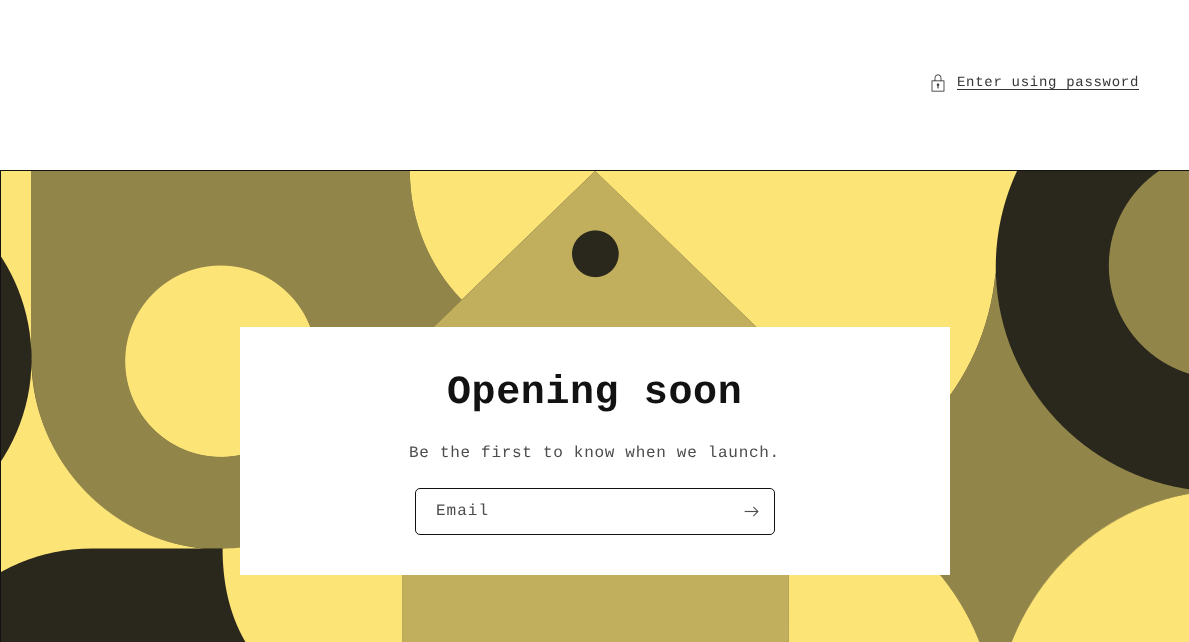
async function draw(canvas) {
  canvas.width = 1189;
  canvas.height = 642;
  const ctx = canvas.getContext('2d');
  ctx.miterLimit = 4;
  ctx.fontKerning = 'normal';
  function label(s, x, y, font, color) {
    ctx.font = font;
    ctx.fillStyle = color;
    ctx.fillText(s, x, y);
  }
  function rect(x, y, w, h, color) {
    ctx.fillStyle = color;
    ctx.fillRect(x, y, w, h);
  }
  async function image(src, x, y, w, h) {
    const img = new Image();
    img.src = src;
    await img.decode();
    ctx.drawImage(img, x, y, w, h);
  }

  rect(0, 0, 1189, 642, '#121212');
  rect(0, 0, 1189, 170, '#fff');
  rect(97, 78, 1, 1, '#f7f7f7');
  await image('assets/img1.png', 931, 74, 14, 18);
  ctx.letterSpacing = '0.7px';
  label('Enter using password', 957, 86, '14px Liberation Mono', '#363636');
  rect(957, 89, 182, 1, '#363636');
  await image('assets/img2.png', 1, 171, 1188, 471);
  rect(240, 327, 710, 248, '#fff');
  ctx.letterSpacing = '0.6px';
  label('Opening soon', 447, 403, 'bold 40px Liberation Mono', '#121212');
  ctx.letterSpacing = '0.7px';
  label('Be the first to know when we launch.', 409, 457, '16px Liberation Mono', '#4d4d4d');
  ctx.beginPath();
  ctx.roundRect(415.5, 488.5, 359, 46, 4.5);
  ctx.strokeStyle = '#121212';
  ctx.stroke();
  ctx.letterSpacing = '1px';
  label('Email', 436, 515, '16px Liberation Mono', '#4d4d4d');
  await image('assets/img3.png', 744, 506, 15, 11);
}

draw(document.querySelector('canvas'));
